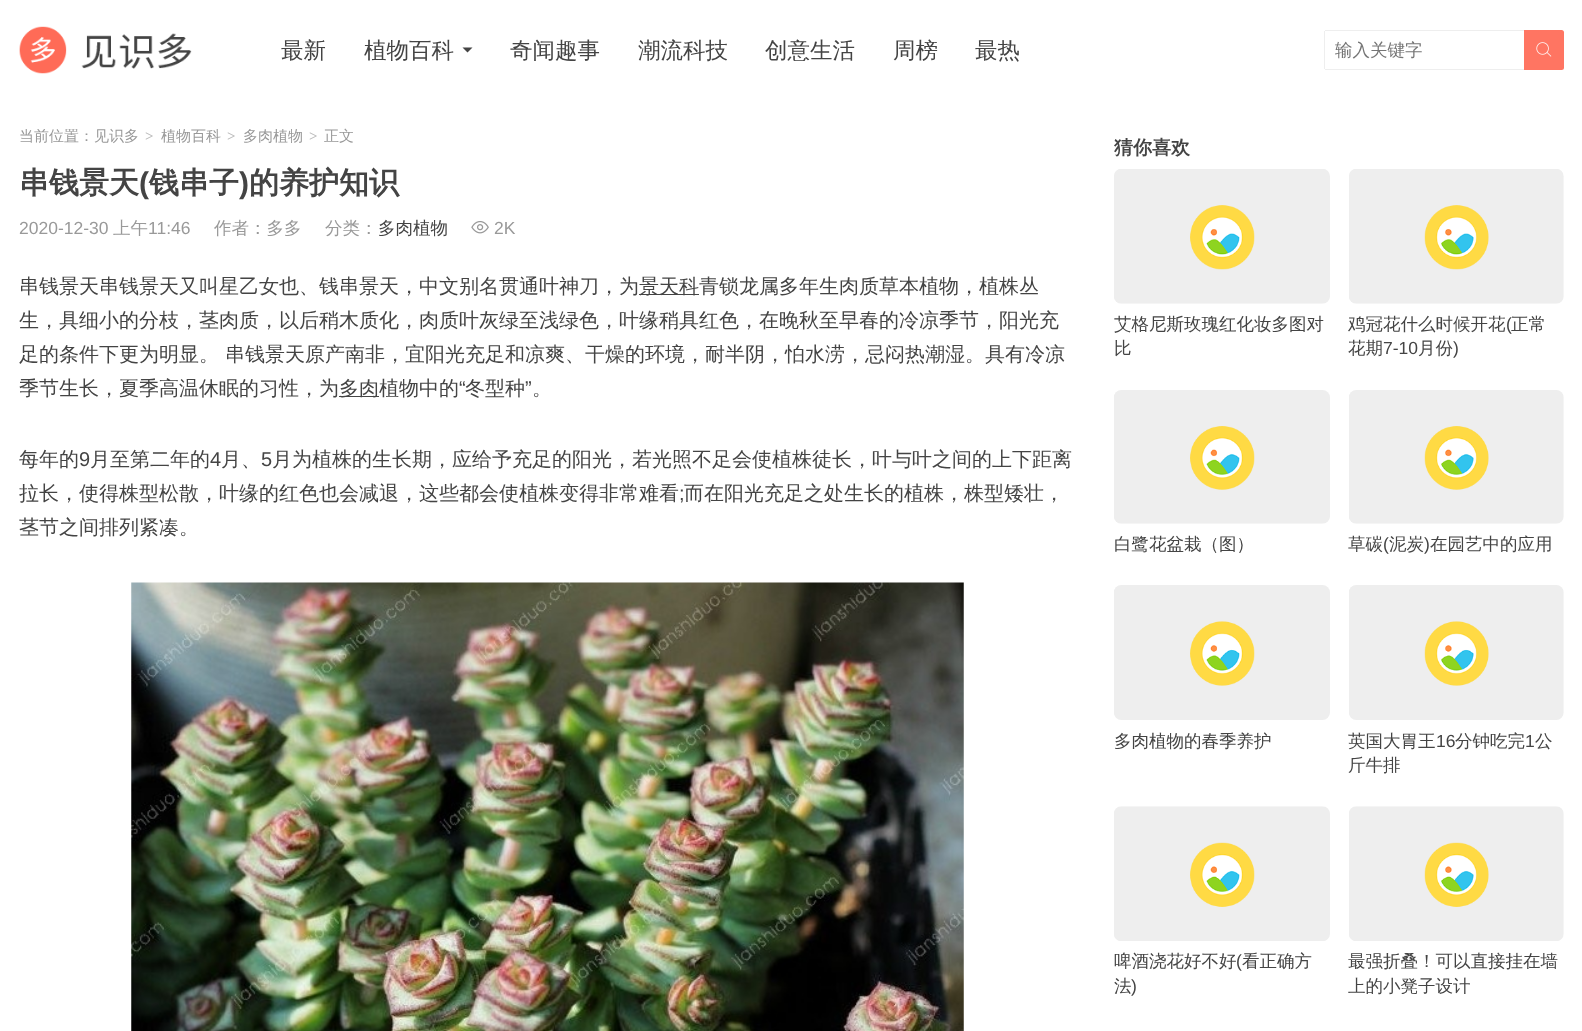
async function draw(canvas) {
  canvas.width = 1582;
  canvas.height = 1031;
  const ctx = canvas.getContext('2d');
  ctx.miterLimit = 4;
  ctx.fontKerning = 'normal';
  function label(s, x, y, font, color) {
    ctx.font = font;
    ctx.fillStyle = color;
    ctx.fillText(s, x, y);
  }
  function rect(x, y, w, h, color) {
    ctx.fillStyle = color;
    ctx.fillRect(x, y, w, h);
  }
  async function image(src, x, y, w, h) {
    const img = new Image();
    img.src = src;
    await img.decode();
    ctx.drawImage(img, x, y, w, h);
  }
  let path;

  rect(0, 0, 1582, 1031, '#fff');
  await image('assets/img1.png', 19, 26, 173, 48);
  label('最新', 281, 58, '500 22.5px WenQuanYi Zen Hei', '#444');
  label('植物百科', 364, 58, '500 22.5px WenQuanYi Zen Hei', '#444');
  path = new Path2D('M462.5 47.5H472.5L467.5 52.5Z');
  ctx.fill(path);
  label('奇闻趣事', 510, 58, '500 22.5px WenQuanYi Zen Hei', '#444');
  label('潮流科技', 638, 58, '500 22.5px WenQuanYi Zen Hei', '#444');
  label('创意生活', 765, 58, '500 22.5px WenQuanYi Zen Hei', '#444');
  label('周榜', 893, 58, '500 22.5px WenQuanYi Zen Hei', '#444');
  label('最热', 975, 58, '500 22.5px WenQuanYi Zen Hei', '#444');
  rect(1325, 30, 199, 1, '#eee');
  rect(1325, 69, 199, 1, '#eee');
  rect(1324, 31, 1, 38, '#eee');
  label('输入关键字', 1335, 56, '500 17.5px WenQuanYi Zen Hei', '#757575');
  ctx.fillStyle = '#ff7562';
  ctx.beginPath();
  ctx.roundRect(1524, 30, 40, 40, [0, 2.5, 2.5, 0]);
  ctx.fill();
  await image('assets/img2.png', 1536, 42, 16, 15);
  ctx.save();
  ctx.beginPath();
  ctx.rect(19, 129, 1057, 15);
  ctx.clip();
  label('当前位置：', 19, 141, '500 15px WenQuanYi Zen Hei', '#999');
  ctx.restore();
  label('见识多', 94, 141, '500 15px WenQuanYi Zen Hei', '#999');
  label('>', 145, 141, 'bold 15px Liberation Serif', '#bbb');
  ctx.save();
  ctx.beginPath();
  ctx.rect(19, 129, 1057, 15);
  ctx.clip();
  label('植物百科', 161, 141, '500 15px WenQuanYi Zen Hei', '#999');
  ctx.restore();
  label('>', 227, 141, 'bold 15px Liberation Serif', '#bbb');
  ctx.save();
  ctx.beginPath();
  ctx.rect(19, 129, 1057, 15);
  ctx.clip();
  label('多肉植物', 243, 141, '500 15px WenQuanYi Zen Hei', '#999');
  ctx.restore();
  label('>', 309, 141, 'bold 15px Liberation Serif', '#bbb');
  label('正文', 324, 141, '500 15px WenQuanYi Zen Hei', '#999');
  label('串钱景天', 19, 193, 'bold 30px WenQuanYi Zen Hei', '#444');
  label('(', 139, 193, 'bold 30px Liberation Sans', '#444');
  label('钱串子', 149, 193, 'bold 30px WenQuanYi Zen Hei', '#444');
  label(')', 239, 193, 'bold 30px Liberation Sans', '#444');
  label('的养护知识', 249, 193, 'bold 30px WenQuanYi Zen Hei', '#444');
  label('2020-12-30', 19, 234, '17.5px Liberation Sans', '#999');
  label('上午', 113, 234, '500 17.5px WenQuanYi Zen Hei', '#999');
  label('11:46', 148, 234, '17.5px Liberation Sans', '#999');
  label('作者：多多', 214, 234, '500 17.5px WenQuanYi Zen Hei', '#999');
  label('分类：', 325, 234, '500 17.5px WenQuanYi Zen Hei', '#999');
  label('多肉植物', 378, 234, '500 17.5px WenQuanYi Zen Hei', '#444');
  await image('assets/img3.png', 471, 221, 18, 13);
  label('2K', 494, 234, '17.5px Liberation Sans', '#999');
  label('串钱景天串钱景天又叫星乙女也、钱串景天，中文别名贯通叶神刀，为', 19, 293, '500 20px WenQuanYi Zen Hei', '#444');
  rect(639, 294, 60, 1, '#444');
  label('景天科青锁龙属多年生肉质草本植物，植株丛', 639, 293, '500 20px WenQuanYi Zen Hei', '#444');
  label('生，具细小的分枝，茎肉质，以后稍木质化，肉质叶灰绿至浅绿色，叶缘稍具红色，在晚秋至早春的冷凉季节，阳光充', 19, 327, '500 20px WenQuanYi Zen Hei', '#444');
  label('足的条件下更为明显。 串钱景天原产南非，宜阳光充足和凉爽、干燥的环境，耐半阴，怕水涝，忌闷热潮湿。具有冷凉', 19, 361, '500 20px WenQuanYi Zen Hei', '#444');
  label('季节生长，夏季高温休眠的习性，为', 19, 395, '500 20px WenQuanYi Zen Hei', '#444');
  rect(339, 396, 40, 1, '#444');
  label('多肉植物中的', 339, 395, '500 20px WenQuanYi Zen Hei', '#444');
  label('“', 459, 395, '20px Liberation Sans', '#444');
  label('冬型种', 465, 395, '500 20px WenQuanYi Zen Hei', '#444');
  label('”', 525, 395, '20px Liberation Sans', '#444');
  label('。', 532, 395, '500 20px WenQuanYi Zen Hei', '#444');
  label('每年的', 19, 466, '500 20px WenQuanYi Zen Hei', '#444');
  label('9', 79, 466, '20px Liberation Sans', '#444');
  label('月至第二年的', 90, 466, '500 20px WenQuanYi Zen Hei', '#444');
  label('4', 210, 466, '20px Liberation Sans', '#444');
  label('月、', 221, 466, '500 20px WenQuanYi Zen Hei', '#444');
  label('5', 261, 466, '20px Liberation Sans', '#444');
  label('月为植株的生长期，应给予充足的阳光，若光照不足会使植株徒长，叶与叶之间的上下距离', 272, 466, '500 20px WenQuanYi Zen Hei', '#444');
  label('拉长，使得株型松散，叶缘的红色也会减退，这些都会使植株变得非常难看', 19, 500, '500 20px WenQuanYi Zen Hei', '#444');
  label(';', 679, 500, '20px Liberation Sans', '#444');
  label('而在阳光充足之处生长的植株，株型矮壮，', 684, 500, '500 20px WenQuanYi Zen Hei', '#444');
  label('茎节之间排列紧凑。', 19, 534, '500 20px WenQuanYi Zen Hei', '#444');
  await image('assets/img4.png', 131, 582, 833, 449);
  label('猜你喜欢', 1114, 154, 'bold 19px WenQuanYi Zen Hei', '#444');
  await image('assets/img5.png', 1114, 169, 216, 135);
  label('艾格尼斯玫瑰红化妆多图对', 1114, 330, '500 17.5px WenQuanYi Zen Hei', '#444');
  label('比', 1114, 354, '500 17.5px WenQuanYi Zen Hei', '#444');
  await image('assets/img6.png', 1349, 169, 215, 135);
  label('鸡冠花什么时候开花', 1348, 330, '500 17.5px WenQuanYi Zen Hei', '#444');
  label('(', 1506, 330, '17.5px Liberation Sans', '#444');
  label('正常', 1511, 330, '500 17.5px WenQuanYi Zen Hei', '#444');
  label('花期', 1348, 354, '500 17.5px WenQuanYi Zen Hei', '#444');
  label('7-10', 1383, 354, '17.5px Liberation Sans', '#444');
  label('月份', 1418, 354, '500 17.5px WenQuanYi Zen Hei', '#444');
  label(')', 1453, 354, '17.5px Liberation Sans', '#444');
  await image('assets/img7.png', 1114, 390, 216, 134);
  label('白鹭花盆栽（图）', 1114, 550, '500 17.5px WenQuanYi Zen Hei', '#444');
  await image('assets/img8.png', 1349, 390, 215, 134);
  label('草碳', 1348, 550, '500 17.5px WenQuanYi Zen Hei', '#444');
  label('(', 1383, 550, '17.5px Liberation Sans', '#444');
  label('泥炭', 1389, 550, '500 17.5px WenQuanYi Zen Hei', '#444');
  label(')', 1424, 550, '17.5px Liberation Sans', '#444');
  label('在园艺中的应用', 1430, 550, '500 17.5px WenQuanYi Zen Hei', '#444');
  await image('assets/img9.png', 1114, 585, 216, 135);
  label('多肉植物的春季养护', 1114, 747, '500 17.5px WenQuanYi Zen Hei', '#444');
  await image('assets/img10.png', 1349, 585, 215, 135);
  label('英国大胃王', 1348, 747, '500 17.5px WenQuanYi Zen Hei', '#444');
  label('16', 1436, 747, '17.5px Liberation Sans', '#444');
  label('分钟吃完', 1455, 747, '500 17.5px WenQuanYi Zen Hei', '#444');
  label('1', 1525, 747, '17.5px Liberation Sans', '#444');
  label('公', 1535, 747, '500 17.5px WenQuanYi Zen Hei', '#444');
  label('斤牛排', 1348, 771, '500 17.5px WenQuanYi Zen Hei', '#444');
  await image('assets/img11.png', 1114, 806, 216, 135);
  label('啤酒浇花好不好', 1114, 967, '500 17.5px WenQuanYi Zen Hei', '#444');
  label('(', 1236, 967, '17.5px Liberation Sans', '#444');
  label('看正确方', 1242, 967, '500 17.5px WenQuanYi Zen Hei', '#444');
  label('法', 1114, 992, '500 17.5px WenQuanYi Zen Hei', '#444');
  label(')', 1131, 992, '17.5px Liberation Sans', '#444');
  await image('assets/img12.png', 1349, 806, 215, 135);
  label('最强折叠！可以直接挂在墙', 1348, 967, '500 17.5px WenQuanYi Zen Hei', '#444');
  label('上的小凳子设计', 1348, 992, '500 17.5px WenQuanYi Zen Hei', '#444');
}

draw(document.querySelector('canvas'));
